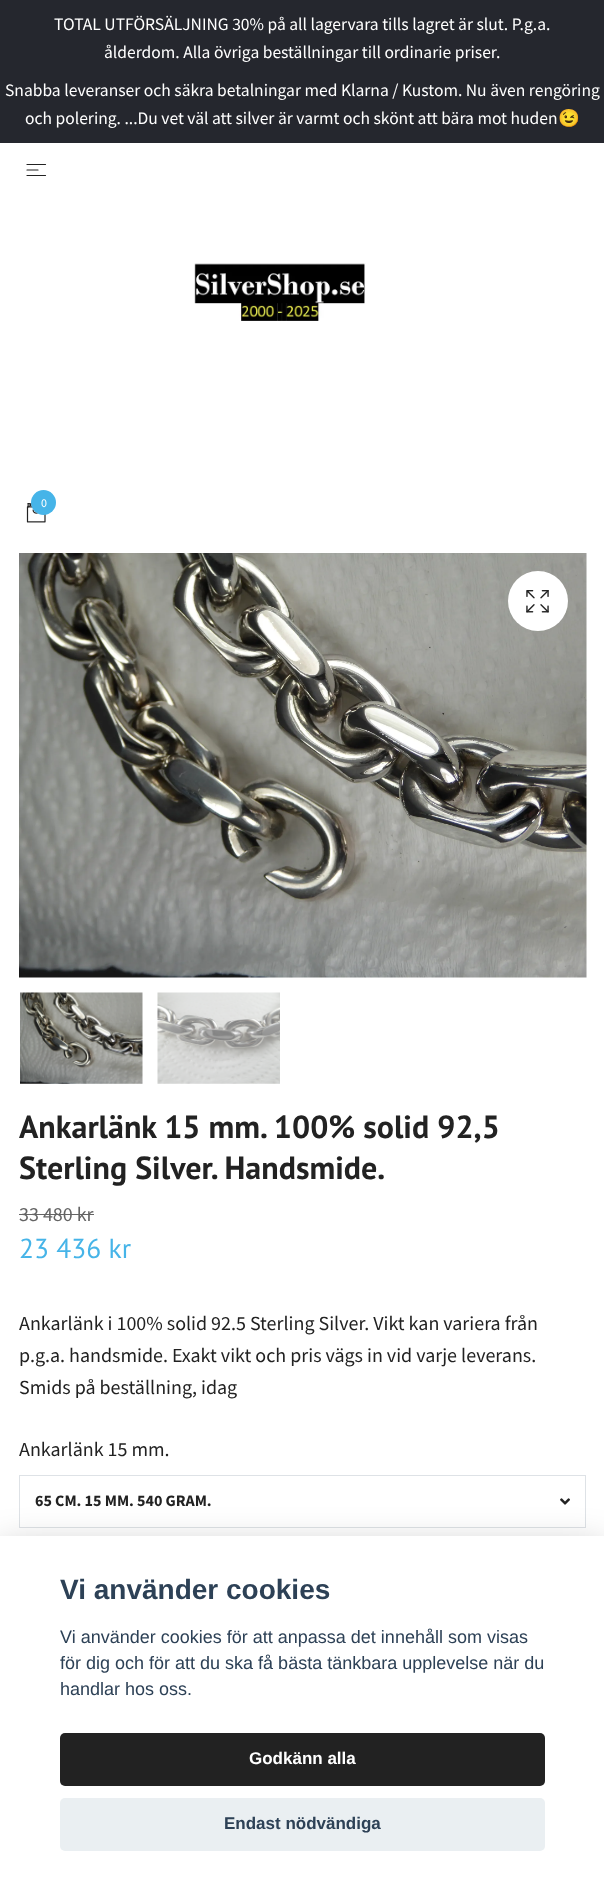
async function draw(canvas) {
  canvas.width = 604;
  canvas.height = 1888;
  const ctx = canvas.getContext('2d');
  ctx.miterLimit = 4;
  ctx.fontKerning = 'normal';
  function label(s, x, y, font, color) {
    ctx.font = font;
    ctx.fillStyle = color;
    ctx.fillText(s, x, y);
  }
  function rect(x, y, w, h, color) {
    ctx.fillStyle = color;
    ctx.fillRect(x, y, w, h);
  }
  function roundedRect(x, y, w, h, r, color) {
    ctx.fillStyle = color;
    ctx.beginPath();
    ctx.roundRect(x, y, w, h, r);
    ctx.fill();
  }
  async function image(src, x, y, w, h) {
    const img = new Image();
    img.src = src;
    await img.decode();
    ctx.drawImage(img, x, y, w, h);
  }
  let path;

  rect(0, 0, 604, 1888, '#fff');
  rect(0, 0, 604, 143, '#25272e');
  label('TOTAL UTFÖRSÄLJNING 30% på all lagervara tills lagret är slut. P.g.a.', 54, 30, '17.5px Source Sans Pro', '#fff');
  label('ålderdom. Alla övriga beställningar till ordinarie priser.', 104, 58, '17.5px Source Sans Pro', '#fff');
  label('Snabba leveranser och säkra betalningar med Klarna / Kustom. Nu även rengöring', 5, 96, '17.5px Source Sans Pro', '#fff');
  label('och polering. ...Du vet väl att silver är varmt och skönt att bära mot huden', 25, 124, '17.5px Source Sans Pro', '#fff');
  label('😉', 558, 124, '17.5px Noto Color Emoji', '#fff');
  path = new Path2D('M27 164.5H45.5M27 170H38M27 175.5H45.5');
  ctx.strokeStyle = '#222';
  ctx.lineWidth = 1.2;
  ctx.lineCap = 'round';
  ctx.lineJoin = 'round';
  ctx.stroke(path);
  await image('assets/img1.png', 194, 263, 172, 58);
  await image('assets/img2.png', 26, 503, 20, 20);
  ctx.fillStyle = '#46b4e8';
  ctx.beginPath();
  ctx.arc(43.5, 502.5, 12.5, 0, 2 * Math.PI);
  ctx.fill();
  label('0', 41, 507, '12px Source Sans Pro', '#fff');
  await image('assets/img3.png', 19, 553, 568, 425);
  ctx.beginPath();
  ctx.arc(538, 601, 30, 0, 2 * Math.PI);
  ctx.fill();
  await image('assets/img4.png', 526, 590, 23, 23);
  await image('assets/img5.png', 20, 992, 123, 92);
  await image('assets/img6.png', 157, 992, 123, 92);
  label('Ankarlänk 15 mm. 100% solid 92,5', 19, 1138, 'bold 32px PT Sans', '#222');
  label('Sterling Silver. Handsmide.', 19, 1179, 'bold 32px PT Sans', '#222');
  label('33 480 kr', 19, 1221, '20px Source Sans Pro', '#646464');
  rect(19, 1214, 75, 1, '#646464');
  label('23 436 kr', 19, 1258, '27.5px PT Sans', '#46b4e8');
  label('Ankarlänk i 100% solid 92.5 Sterling Silver. Vikt kan variera från', 19, 1330, '20px Source Sans Pro', '#222');
  label('p.g.a. handsmide. Exakt vikt och pris vägs in vid varje leverans.', 19, 1362, '20px Source Sans Pro', '#222');
  label('Smids på beställning, idag', 19, 1394, '20px Source Sans Pro', '#222');
  label('Ankarlänk 15 mm.', 19, 1456, '20px Source Sans Pro', '#222');
  ctx.strokeStyle = '#dee2e6';
  ctx.lineWidth = 1;
  ctx.lineJoin = 'miter';
  ctx.strokeRect(19.5, 1475.5, 566, 52);
  label('65 CM. 15 MM. 540 GRAM.', 35, 1506, 'bold 16px Source Sans Pro', '#222');
  await image('assets/img7.png', 560, 1498, 10, 7);
  ctx.fillStyle = '#02020347';
  ctx.filter = 'blur(19px)';
  ctx.beginPath();
  ctx.rect(0, 1549, 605, 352);
  ctx.fill();
  ctx.filter = 'none';
  rect(0, 1536, 604, 352, '#fff');
  label('Vi använder cookies', 60, 1599, 'bold 28px Liberation Sans', '#2d4156');
  label('Vi använder cookies för att anpassa det innehåll som visas', 60, 1643, '18px Liberation Sans', '#2d4156');
  label('för dig och för att du ska få bästa tänkbara upplevelse när du', 60, 1669, '18px Liberation Sans', '#2d4156');
  label('handlar hos oss.', 60, 1695, '18px Liberation Sans', '#2d4156');
  roundedRect(60, 1733, 485, 53, 5, '#222');
  label('Godkänn alla', 249, 1764, 'bold 17px Liberation Sans', '#fff');
  roundedRect(60, 1798, 485, 53, 5, '#eaeff2');
  label('Endast nödvändiga', 224, 1829, 'bold 17px Liberation Sans', '#2d4156');
}

draw(document.querySelector('canvas'));
